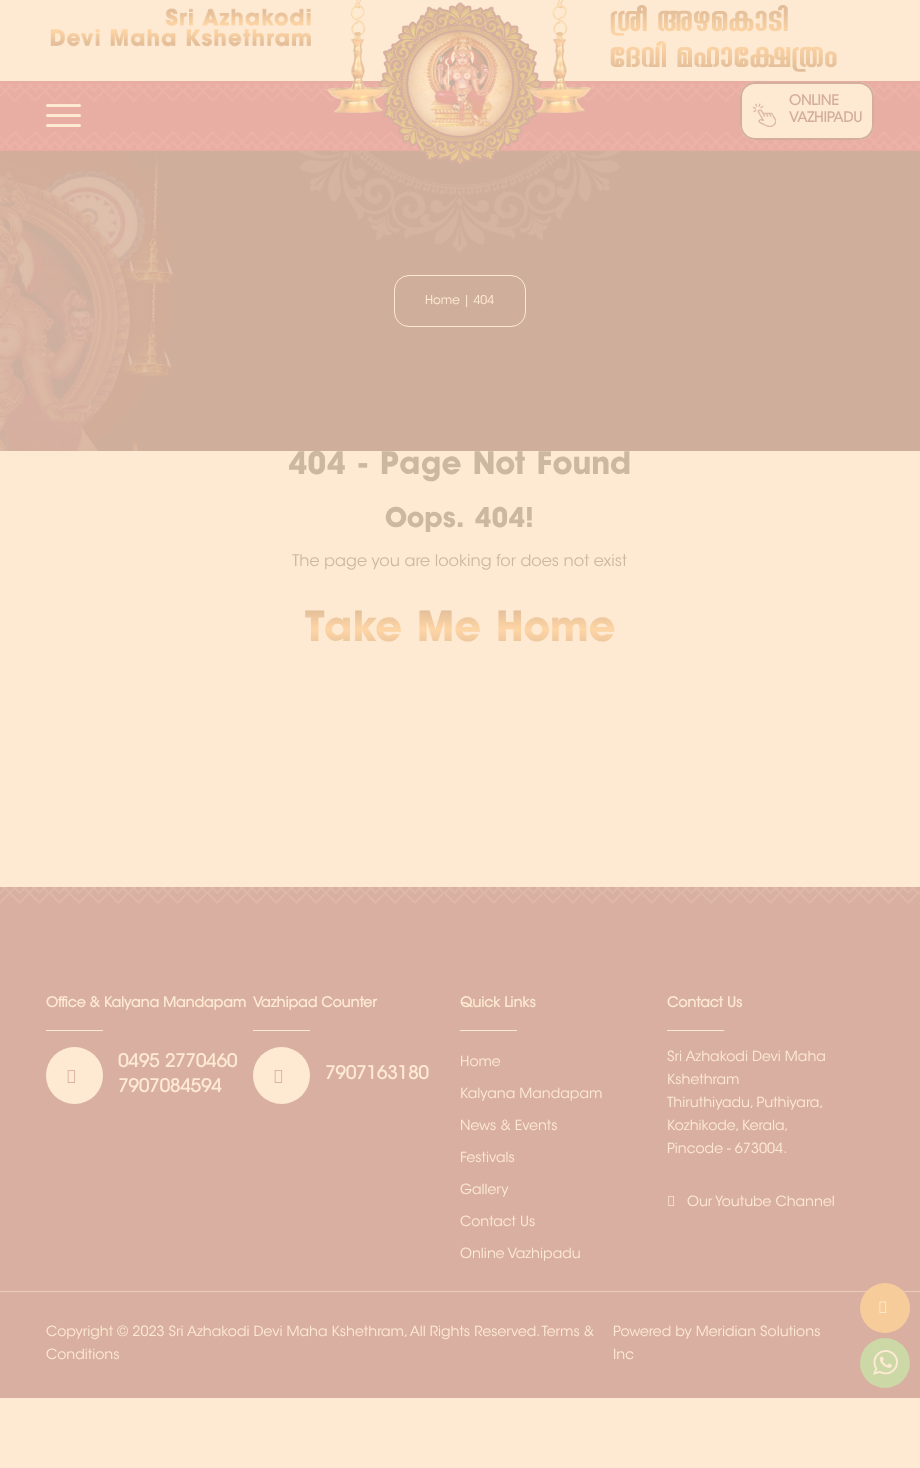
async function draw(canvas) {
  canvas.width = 920;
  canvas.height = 1468;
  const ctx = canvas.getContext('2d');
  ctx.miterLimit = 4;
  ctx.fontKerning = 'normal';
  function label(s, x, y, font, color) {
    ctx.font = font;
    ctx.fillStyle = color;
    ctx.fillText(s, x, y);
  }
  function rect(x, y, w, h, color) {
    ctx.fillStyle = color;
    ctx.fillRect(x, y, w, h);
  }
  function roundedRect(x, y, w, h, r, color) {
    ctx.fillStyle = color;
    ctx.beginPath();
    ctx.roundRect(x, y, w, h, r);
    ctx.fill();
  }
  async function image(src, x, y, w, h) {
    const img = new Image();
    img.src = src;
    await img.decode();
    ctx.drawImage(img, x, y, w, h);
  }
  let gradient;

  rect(0, 0, 920, 1468, '#feead2');
  rect(0, 81, 920, 70, '#e8aea3');
  await image('assets/img1.png', 0, 84, 920, 65);
  roundedRect(46, 104, 35, 3, 1.5, '#feead2');
  roundedRect(46, 114, 35, 3, 1.5, '#feead2');
  roundedRect(46, 124, 35, 3, 1.5, '#feead2');
  await image('assets/img8.png', 0, 151, 920, 300);
  await image('assets/img3.png', 378, 2, 164, 164);
  await image('assets/img2.png', 324, 0, 68, 113);
  await image('assets/img4.png', 526, 0, 68, 113);
  await image('assets/img5.png', 50, 8, 261, 39);
  await image('assets/img6.png', 610, 5, 227, 67);
  roundedRect(740, 82, 134, 58, 15, '#feead2');
  await image('assets/img7.png', 752, 103, 24, 24);
  ctx.beginPath();
  ctx.roundRect(741, 83, 132, 56, 14);
  ctx.strokeStyle = '#d3ae9e';
  ctx.lineWidth = 2;
  ctx.stroke();
  label('ONLINE', 789, 105, 'bold 14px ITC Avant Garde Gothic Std', '#d3ae9e');
  label('VAZHIPADU', 789, 122, 'bold 14px ITC Avant Garde Gothic Std', '#d3ae9e');
  ctx.beginPath();
  ctx.roundRect(394.5, 275.5, 131, 51, 14.5);
  ctx.strokeStyle = '#feead2';
  ctx.lineWidth = 1;
  ctx.stroke();
  label('Home | 404', 425, 304, '300 12px ITC Avant Garde Gothic Std', '#feead2');
  label('404 - Page Not Found', 288, 474, 'bold 32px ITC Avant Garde', '#ccb8a0');
  label('Oops. 404!', 385, 527, 'bold 28px ITC Avant Garde', '#ccb8a0');
  label('The page you are looking for does not exist', 292, 566, '300 16px ITC Avant Garde Gothic Std', '#ccb8a0');
  ctx.font = 'bold 43px ITC Avant Garde';
  gradient = ctx.createLinearGradient(460, 657, 460, 604);
  gradient.addColorStop(0, '#dbb896');
  gradient.addColorStop(0.52, '#fed5a5');
  gradient.addColorStop(1, '#dbb896');
  ctx.fillStyle = gradient;
  ctx.fillText('Take Me Home', 305, 641);
  rect(0, 887, 920, 511, '#d8afa1');
  await image('assets/img9.png', 0, 887, 920, 17);
  label('Office & Kalyana Mandapam', 46, 1007, 'bold 14px ITC Avant Garde Gothic Std', '#feead2');
  rect(46, 1030, 57, 1, '#feead2');
  ctx.beginPath();
  ctx.arc(74.5, 1075.5, 28.5, 0, 2 * Math.PI);
  ctx.fill();
  await image('assets/img10.png', 67, 1070, 9, 13);
  label('0495 2770460', 118, 1067, 'bold 18px ITC Avant Garde Gothic Std', '#feead2');
  label('7907084594', 118, 1092, 'bold 18px ITC Avant Garde Gothic Std', '#feead2');
  label('Vazhipad Counter', 253, 1007, 'bold 14px ITC Avant Garde Gothic Std', '#feead2');
  rect(253, 1030, 57, 1, '#feead2');
  ctx.beginPath();
  ctx.arc(281.5, 1075.5, 28.5, 0, 2 * Math.PI);
  ctx.fill();
  await image('assets/img10.png', 274, 1070, 9, 13);
  label('7907163180', 325, 1079, 'bold 18px ITC Avant Garde Gothic Std', '#feead2');
  label('Quick Links', 460, 1007, 'bold 14px ITC Avant Garde Gothic Std', '#feead2');
  rect(460, 1030, 57, 1, '#feead2');
  label('Home', 460, 1066, '300 14px ITC Avant Garde Gothic Std', '#feead2');
  label('Kalyana Mandapam', 460, 1098, '300 14px ITC Avant Garde Gothic Std', '#feead2');
  label('News & Events', 460, 1130, '300 14px ITC Avant Garde Gothic Std', '#feead2');
  label('Festivals', 460, 1162, '300 14px ITC Avant Garde Gothic Std', '#feead2');
  label('Gallery', 460, 1194, '300 14px ITC Avant Garde Gothic Std', '#feead2');
  label('Contact Us', 460, 1226, '300 14px ITC Avant Garde Gothic Std', '#feead2');
  label('Online Vazhipadu', 460, 1258, '300 14px ITC Avant Garde Gothic Std', '#feead2');
  label('Contact Us', 667, 1007, 'bold 14px ITC Avant Garde Gothic Std', '#feead2');
  rect(667, 1030, 57, 1, '#feead2');
  label('Sri Azhakodi Devi Maha', 667, 1061, '300 14px ITC Avant Garde Gothic Std', '#feead2');
  label('Kshethram', 667, 1084, '300 14px ITC Avant Garde Gothic Std', '#feead2');
  label('Thiruthiyadu, Puthiyara,', 667, 1107, '300 14px ITC Avant Garde Gothic Std', '#feead2');
  label('Kozhikode, Kerala,', 667, 1130, '300 14px ITC Avant Garde Gothic Std', '#feead2');
  label('Pincode - 673004.', 667, 1153, '300 14px ITC Avant Garde Gothic Std', '#feead2');
  await image('assets/img11.png', 668, 1196, 7, 10);
  label('Our Youtube Channel', 687, 1206, '300 14px ITC Avant Garde Gothic Std', '#feead2');
  rect(0, 1291, 920, 1, '#ebccba');
  label('Copyright © 2023 Sri Azhakodi Devi Maha Kshethram, All Rights Reserved. Terms &', 46, 1336, '300 14px ITC Avant Garde Gothic Std', '#feead2');
  label('Conditions', 46, 1359, '300 14px ITC Avant Garde Gothic Std', '#feead2');
  label('Powered by Meridian Solutions', 613, 1336, '300 14px ITC Avant Garde Gothic Std', '#feead2');
  label('Inc', 613, 1359, '300 14px ITC Avant Garde Gothic Std', '#feead2');
  ctx.fillStyle = '#f7cc9b';
  ctx.beginPath();
  ctx.arc(885, 1308, 25, 0, 2 * Math.PI);
  ctx.fill();
  await image('assets/img12.png', 879, 1301, 8, 12);
  ctx.fillStyle = '#ccd8a5';
  ctx.beginPath();
  ctx.arc(885, 1363, 25, 0, 2 * Math.PI);
  ctx.fill();
  await image('assets/img13.png', 873, 1350, 25, 25);
}

draw(document.querySelector('canvas'));
